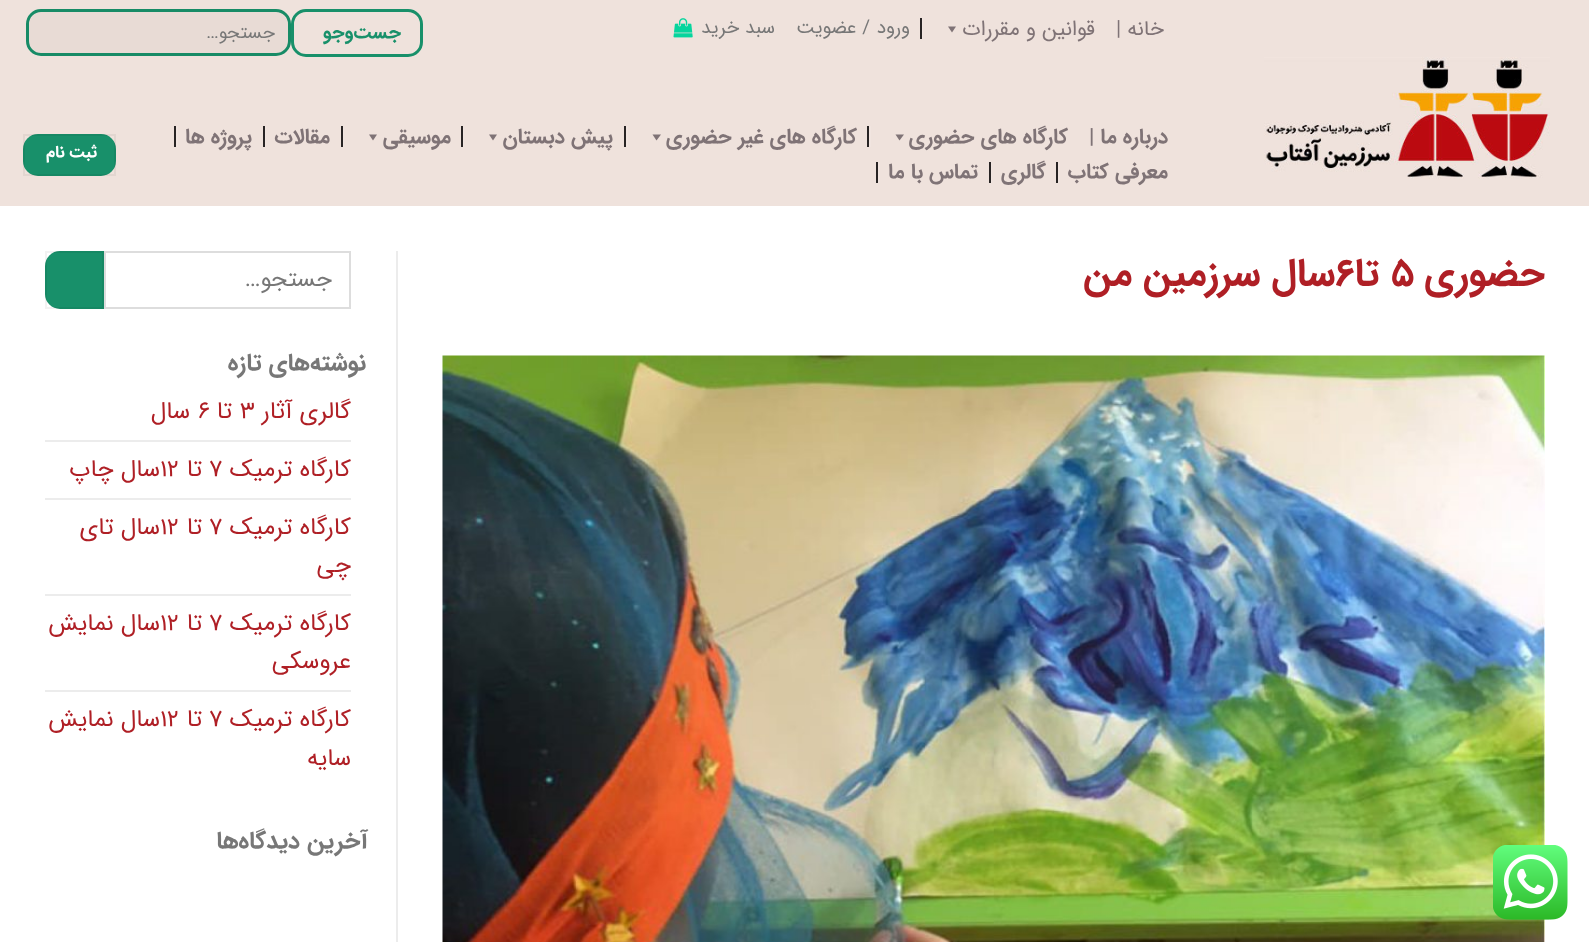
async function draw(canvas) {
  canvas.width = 1589;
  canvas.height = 942;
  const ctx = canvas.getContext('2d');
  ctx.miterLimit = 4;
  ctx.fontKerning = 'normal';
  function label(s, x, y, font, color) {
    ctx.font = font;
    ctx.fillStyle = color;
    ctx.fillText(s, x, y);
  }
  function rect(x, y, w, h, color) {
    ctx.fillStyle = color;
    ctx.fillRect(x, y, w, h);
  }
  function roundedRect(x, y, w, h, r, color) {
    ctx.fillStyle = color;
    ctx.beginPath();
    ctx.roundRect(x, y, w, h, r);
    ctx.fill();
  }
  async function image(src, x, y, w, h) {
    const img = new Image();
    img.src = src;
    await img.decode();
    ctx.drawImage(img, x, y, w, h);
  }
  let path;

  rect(0, 0, 1589, 942, '#fff');
  rect(0, 0, 1589, 206, '#efe2dc');
  ctx.direction = 'rtl';
  label('خانه', 1164, 35, '21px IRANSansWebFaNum', '#7f7376');
  ctx.direction = 'ltr';
  label('|', 1116, 35, '21px IRANSansWebFaNum', '#7f7376');
  rect(922, 18, 1, 21, '#f1e5e0');
  rect(920, 18, 2, 21, '#282424');
  ctx.direction = 'rtl';
  label('قوانین و مقررات', 1095, 35, '21px IRANSansWebFaNum', '#7f7376');
  path = new Path2D('M956 26.5L952 32.5L948 26.5Z');
  ctx.fill(path);
  label('ورود', 910, 33, '19px IRANSansWebFaNum', '#777');
  label('/ عضویت', 870, 33, '19px IRANSansWebFaNum', '#777');
  label('سبد خرید', 775, 33, '19px IRANSansWebFaNum', '#777');
  await image('assets/img1.png', 673, 18, 20, 20);
  ctx.beginPath();
  ctx.roundRect(292.5, 10.5, 129, 45, 13.5);
  ctx.strokeStyle = '#18906a';
  ctx.lineWidth = 3;
  ctx.stroke();
  ctx.letterSpacing = '0.5px';
  label('جست‌و‌جو', 401, 38, 'bold 19px IRANSansWebFaNum', '#18906a');
  ctx.fillStyle = '#e8dbd5';
  ctx.beginPath();
  ctx.roundRect(27.5, 10.5, 262, 44, 13.5);
  ctx.fill();
  ctx.strokeStyle = '#178b66';
  ctx.stroke();
  ctx.letterSpacing = '0px';
  label('جستجو…', 275, 38, '18.5px IRANSansWebFaNum', '#777');
  await image('assets/img2.png', 1264, 57, 286, 122);
  label('درباره ما', 1168, 143, 'bold 21px IRANSansWebFaNum', '#7f7376');
  ctx.direction = 'ltr';
  label('|', 1089, 143, 'bold 21px IRANSansWebFaNum', '#7f7376');
  rect(869, 126, 2, 21, '#f1e5e0');
  rect(867, 126, 2, 21, '#282424');
  ctx.direction = 'rtl';
  label('کارگاه های حضوری', 1068, 143, 'bold 21px IRANSansWebFaNum', '#7f7376');
  path = new Path2D('M904 134.5L899.5 140.5L895.5 134.5Z');
  ctx.fill(path);
  rect(626, 126, 2, 21, '#f1e5e0');
  rect(624, 126, 2, 21, '#282424');
  label('کارگاه های غیر حضوری', 857, 143, 'bold 21px IRANSansWebFaNum', '#7f7376');
  path = new Path2D('M661 134.5L656.5 140.5L652.5 134.5Z');
  ctx.fill(path);
  rect(463, 126, 1, 21, '#f1e5e0');
  rect(461, 126, 2, 21, '#282424');
  label('پیش دبستان', 613, 143, 'bold 21px IRANSansWebFaNum', '#7f7376');
  path = new Path2D('M497 134.5L493 140.5L489 134.5Z');
  ctx.fill(path);
  rect(343, 126, 1, 21, '#f1e5e0');
  rect(341, 126, 2, 21, '#282424');
  label('موسیقی', 451, 143, 'bold 21px IRANSansWebFaNum', '#7f7376');
  path = new Path2D('M377 134.5L373 140.5L369 134.5Z');
  ctx.fill(path);
  rect(265, 126, 1, 21, '#f1e5e0');
  rect(263, 126, 2, 21, '#282424');
  label('مقالات', 330, 143, 'bold 21px IRANSansWebFaNum', '#7f7376');
  rect(176, 126, 2, 21, '#f1e5e0');
  rect(174, 126, 2, 21, '#282424');
  label('پروژه ها', 252, 143, 'bold 21px IRANSansWebFaNum', '#7f7376');
  rect(1058, 162, 2, 21, '#f1e5e0');
  rect(1056, 162, 2, 21, '#282424');
  label('معرفی کتاب', 1168, 178, 'bold 21px IRANSansWebFaNum', '#7f7376');
  rect(991, 162, 1, 21, '#f1e5e0');
  rect(989, 162, 2, 21, '#282424');
  label('گالری', 1046, 178, 'bold 21px IRANSansWebFaNum', '#7f7376');
  rect(878, 162, 2, 21, '#f1e5e0');
  rect(876, 162, 2, 21, '#282424');
  label('تماس با ما', 978, 178, 'bold 21px IRANSansWebFaNum', '#7f7376');
  roundedRect(23, 134, 93, 42, 15, '#18906a');
  ctx.strokeStyle = '#0000000d';
  ctx.lineWidth = 2;
  ctx.strokeRect(24, 135, 91, 40);
  ctx.letterSpacing = '0.5px';
  ctx.wordSpacing = '-1px';
  label('ثبت نام', 97, 157, 'bold 16.5px IRANSansWebFaNum', '#fff');
  ctx.letterSpacing = '0px';
  ctx.wordSpacing = '0px';
  label('حضوری', 1545, 285, 'bold 38.5px IRANSansWebFaNum', '#af1f25');
  ctx.direction = 'ltr';
  label('5', 1391, 285, 'bold 38.5px IRANSansWebFaNum', '#af1f25');
  ctx.direction = 'rtl';
  label('تا', 1379, 285, 'bold 38.5px IRANSansWebFaNum', '#af1f25');
  ctx.direction = 'ltr';
  label('6', 1335, 285, 'bold 38.5px IRANSansWebFaNum', '#af1f25');
  ctx.direction = 'rtl';
  label('سال سرزمین من', 1335, 285, 'bold 38.5px IRANSansWebFaNum', '#af1f25');
  await image('assets/img3.png', 442, 355, 1103, 587);
  rect(396, 251, 2, 691, '#ececec');
  ctx.strokeStyle = '#ddd';
  ctx.strokeRect(105, 252, 245, 56);
  label('جستجو…', 332, 286, '23.5px IRANSansWebFaNum', '#777');
  ctx.fillStyle = '#18906a';
  ctx.beginPath();
  ctx.roundRect(45, 251, 59, 58, [15, 0, 0, 15]);
  ctx.fill();
  ctx.strokeStyle = '#0000000d';
  ctx.strokeRect(46, 252, 57, 56);
  ctx.letterSpacing = '1.25px';
  ctx.wordSpacing = '-1px';
  label('نوشته‌های تازه', 366, 370, 'bold 24px IRANSansWebFaNum', '#777');
  ctx.letterSpacing = '0px';
  ctx.wordSpacing = '0px';
  label('گالری آثار', 351, 418, '24px IRANSansWebFaNum', '#af1f25');
  ctx.direction = 'ltr';
  label('3', 240, 418, '24px IRANSansWebFaNum', '#af1f25');
  ctx.direction = 'rtl';
  label('تا', 232, 418, '24px IRANSansWebFaNum', '#af1f25');
  ctx.direction = 'ltr';
  label('6', 198, 418, '24px IRANSansWebFaNum', '#af1f25');
  ctx.direction = 'rtl';
  label('سال', 190, 418, '24px IRANSansWebFaNum', '#af1f25');
  rect(45, 440, 306, 2, '#ececec');
  label('کارگاه ترمیک', 351, 476, '24px IRANSansWebFaNum', '#af1f25');
  ctx.direction = 'ltr';
  label('7', 209, 476, '24px IRANSansWebFaNum', '#af1f25');
  ctx.direction = 'rtl';
  label('تا', 202, 476, '24px IRANSansWebFaNum', '#af1f25');
  ctx.direction = 'ltr';
  label('12', 160, 476, '24px IRANSansWebFaNum', '#af1f25');
  ctx.direction = 'rtl';
  label('سال چاپ', 160, 476, '24px IRANSansWebFaNum', '#af1f25');
  rect(45, 498, 306, 2, '#ececec');
  label('کارگاه ترمیک', 351, 534, '24px IRANSansWebFaNum', '#af1f25');
  ctx.direction = 'ltr';
  label('7', 209, 534, '24px IRANSansWebFaNum', '#af1f25');
  ctx.direction = 'rtl';
  label('تا', 202, 534, '24px IRANSansWebFaNum', '#af1f25');
  ctx.direction = 'ltr';
  label('12', 160, 534, '24px IRANSansWebFaNum', '#af1f25');
  ctx.direction = 'rtl';
  label('سال تای', 160, 534, '24px IRANSansWebFaNum', '#af1f25');
  label('چی', 351, 572, '24px IRANSansWebFaNum', '#af1f25');
  rect(45, 594, 306, 2, '#ececec');
  label('کارگاه ترمیک', 351, 630, '24px IRANSansWebFaNum', '#af1f25');
  ctx.direction = 'ltr';
  label('7', 209, 630, '24px IRANSansWebFaNum', '#af1f25');
  ctx.direction = 'rtl';
  label('تا', 202, 630, '24px IRANSansWebFaNum', '#af1f25');
  ctx.direction = 'ltr';
  label('12', 160, 630, '24px IRANSansWebFaNum', '#af1f25');
  ctx.direction = 'rtl';
  label('سال نمایش', 160, 630, '24px IRANSansWebFaNum', '#af1f25');
  label('عروسکی', 351, 668, '24px IRANSansWebFaNum', '#af1f25');
  rect(45, 690, 306, 2, '#ececec');
  label('کارگاه ترمیک', 351, 726, '24px IRANSansWebFaNum', '#af1f25');
  ctx.direction = 'ltr';
  label('7', 209, 726, '24px IRANSansWebFaNum', '#af1f25');
  ctx.direction = 'rtl';
  label('تا', 202, 726, '24px IRANSansWebFaNum', '#af1f25');
  ctx.direction = 'ltr';
  label('12', 160, 726, '24px IRANSansWebFaNum', '#af1f25');
  ctx.direction = 'rtl';
  label('سال نمایش', 160, 726, '24px IRANSansWebFaNum', '#af1f25');
  label('سایه', 351, 765, '24px IRANSansWebFaNum', '#af1f25');
  ctx.letterSpacing = '1.25px';
  ctx.wordSpacing = '-1px';
  label('آخرین دیدگاه‌ها', 368, 848, 'bold 24px IRANSansWebFaNum', '#777');
  await image('assets/img4.png', 1493, 845, 75, 75);
}

draw(document.querySelector('canvas'));
